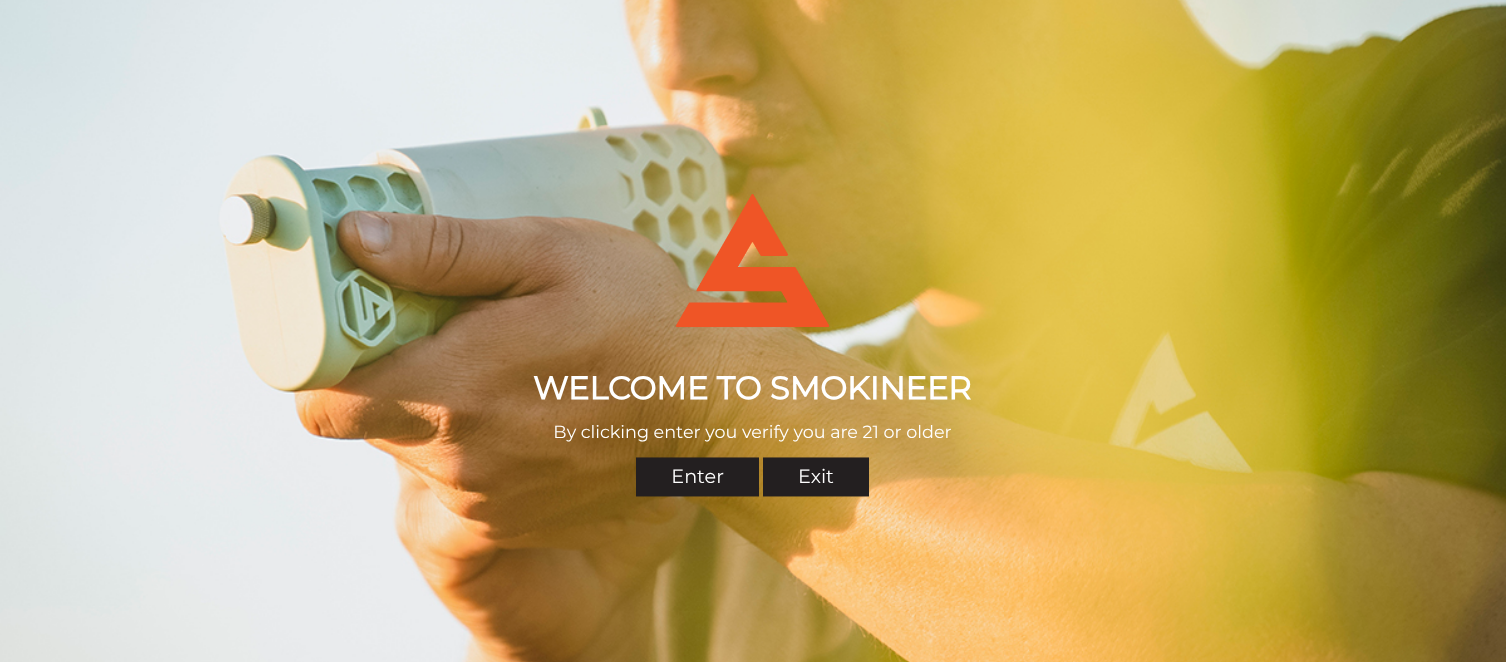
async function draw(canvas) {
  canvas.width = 1506;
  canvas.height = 662;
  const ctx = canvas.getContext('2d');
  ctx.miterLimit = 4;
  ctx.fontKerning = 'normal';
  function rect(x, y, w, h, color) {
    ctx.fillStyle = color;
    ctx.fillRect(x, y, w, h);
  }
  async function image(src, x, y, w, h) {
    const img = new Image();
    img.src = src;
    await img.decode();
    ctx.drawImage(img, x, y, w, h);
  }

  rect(0, 0, 1506, 662, '#fff');
  await image('assets/img1.png', 0, 0, 1506, 662);
  await image('assets/img2.png', 533, 194, 438, 303);
}

draw(document.querySelector('canvas'));
